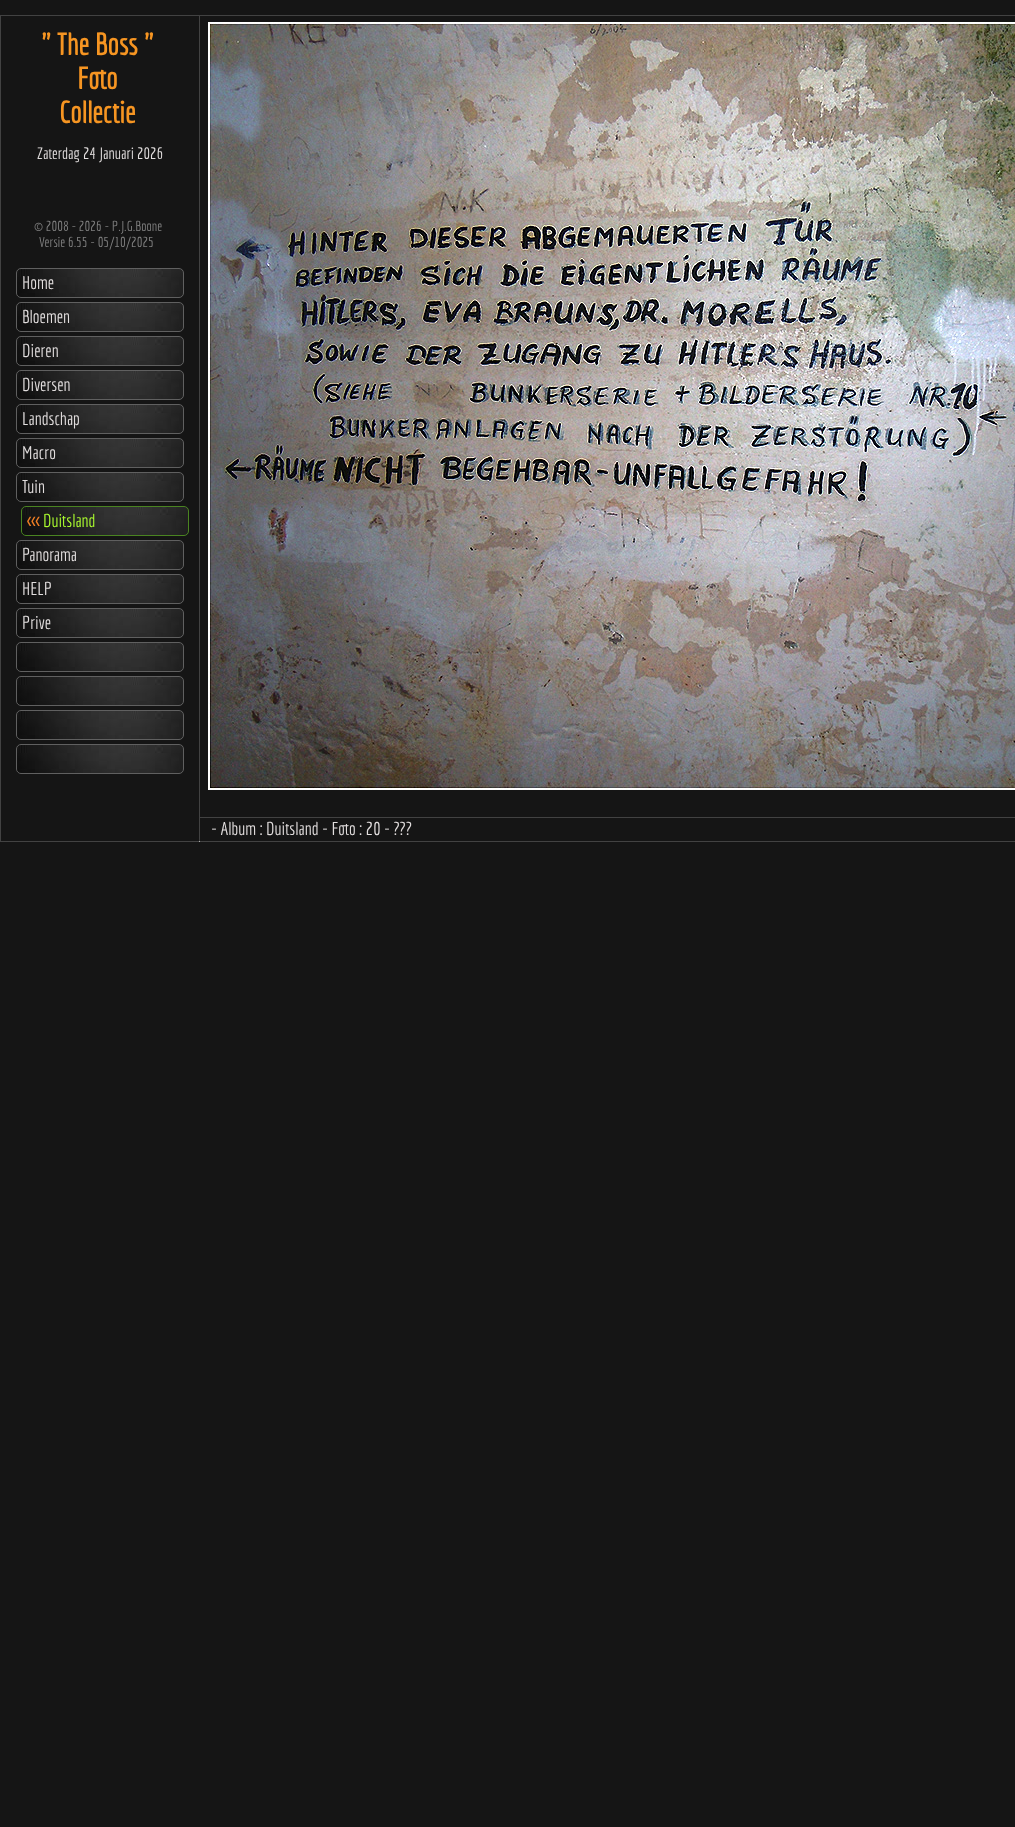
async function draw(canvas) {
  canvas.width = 1015;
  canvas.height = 1827;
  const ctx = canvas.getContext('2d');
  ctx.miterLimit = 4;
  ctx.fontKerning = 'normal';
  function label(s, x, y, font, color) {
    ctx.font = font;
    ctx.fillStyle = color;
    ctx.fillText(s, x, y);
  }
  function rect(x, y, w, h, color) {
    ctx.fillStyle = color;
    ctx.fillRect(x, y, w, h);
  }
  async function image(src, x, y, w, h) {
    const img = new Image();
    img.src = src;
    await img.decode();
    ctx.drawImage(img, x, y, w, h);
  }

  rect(0, 0, 1015, 1827, '#151515');
  await image('assets/img1.png', 0, 15, 1015, 827);
  label('" The Boss "', 41, 55, 'bold 30px Economica', '#f69522');
  label('Foto', 77, 89, 'bold 30px Economica', '#f69522');
  label('Collectie', 59, 123, 'bold 30px Economica', '#f69522');
  label('Zaterdag 24 Januari 2026', 37, 159, '16px Economica', '#e2dede');
  label('© 2008 - 2026 - P.J.G.Boone', 34, 231, '14px Economica', '#808080');
  label('Versie 6.55 - 05/10/2025', 39, 247, '14px Economica', '#808080');
  await image('assets/img2.png', 17, 269, 167, 29);
  ctx.beginPath();
  ctx.roundRect(16.5, 268.5, 167, 29, 4.5);
  ctx.strokeStyle = '#606060';
  ctx.stroke();
  label('Home', 22, 289, '18px Economica', '#e2dede');
  await image('assets/img2.png', 17, 303, 167, 29);
  ctx.beginPath();
  ctx.roundRect(16.5, 302.5, 167, 29, 4.5);
  ctx.stroke();
  label('Bloemen', 22, 323, '18px Economica', '#e2dede');
  await image('assets/img2.png', 17, 337, 167, 29);
  ctx.beginPath();
  ctx.roundRect(16.5, 336.5, 167, 29, 4.5);
  ctx.stroke();
  label('Dieren', 22, 357, '18px Economica', '#e2dede');
  await image('assets/img2.png', 17, 371, 167, 29);
  ctx.beginPath();
  ctx.roundRect(16.5, 370.5, 167, 29, 4.5);
  ctx.stroke();
  label('Diversen', 22, 391, '18px Economica', '#e2dede');
  await image('assets/img2.png', 17, 405, 167, 29);
  ctx.beginPath();
  ctx.roundRect(16.5, 404.5, 167, 29, 4.5);
  ctx.stroke();
  label('Landschap', 22, 425, '18px Economica', '#e2dede');
  await image('assets/img2.png', 17, 439, 167, 29);
  ctx.beginPath();
  ctx.roundRect(16.5, 438.5, 167, 29, 4.5);
  ctx.stroke();
  label('Macro', 22, 459, '18px Economica', '#e2dede');
  await image('assets/img2.png', 17, 473, 167, 29);
  ctx.beginPath();
  ctx.roundRect(16.5, 472.5, 167, 29, 4.5);
  ctx.stroke();
  label('Tuin', 22, 493, '18px Economica', '#e2dede');
  await image('assets/img3.png', 22, 507, 167, 29);
  ctx.beginPath();
  ctx.roundRect(21.5, 506.5, 167, 29, 4.5);
  ctx.strokeStyle = '#4a8421';
  ctx.stroke();
  label('<<<', 27, 527, 'bold 18px Economica', '#ee7e24');
  label('Duitsland', 43, 527, '18px Economica', '#adff2f');
  await image('assets/img2.png', 17, 541, 167, 29);
  ctx.beginPath();
  ctx.roundRect(16.5, 540.5, 167, 29, 4.5);
  ctx.strokeStyle = '#606060';
  ctx.stroke();
  label('Panorama', 22, 561, '18px Economica', '#e2dede');
  await image('assets/img2.png', 17, 575, 167, 29);
  ctx.beginPath();
  ctx.roundRect(16.5, 574.5, 167, 29, 4.5);
  ctx.stroke();
  label('HELP', 22, 595, '18px Economica', '#e2dede');
  await image('assets/img2.png', 17, 609, 167, 29);
  ctx.beginPath();
  ctx.roundRect(16.5, 608.5, 167, 29, 4.5);
  ctx.stroke();
  label('Prive', 22, 629, '18px Economica', '#e2dede');
  await image('assets/img4.png', 17, 643, 166, 29);
  ctx.beginPath();
  ctx.roundRect(16.5, 642.5, 167, 29, 4.5);
  ctx.stroke();
  await image('assets/img4.png', 17, 677, 166, 29);
  ctx.beginPath();
  ctx.roundRect(16.5, 676.5, 167, 29, 4.5);
  ctx.stroke();
  await image('assets/img4.png', 17, 711, 166, 29);
  ctx.beginPath();
  ctx.roundRect(16.5, 710.5, 167, 29, 4.5);
  ctx.stroke();
  await image('assets/img5.png', 17, 745, 166, 29);
  ctx.beginPath();
  ctx.roundRect(16.5, 744.5, 167, 29, 4.5);
  ctx.stroke();
  await image('assets/img6.png', 208, 22, 807, 768);
  label('- Album : Duitsland - Foto : 20 - ???', 211, 835, '18px Economica', '#e2dede');
}

draw(document.querySelector('canvas'));
